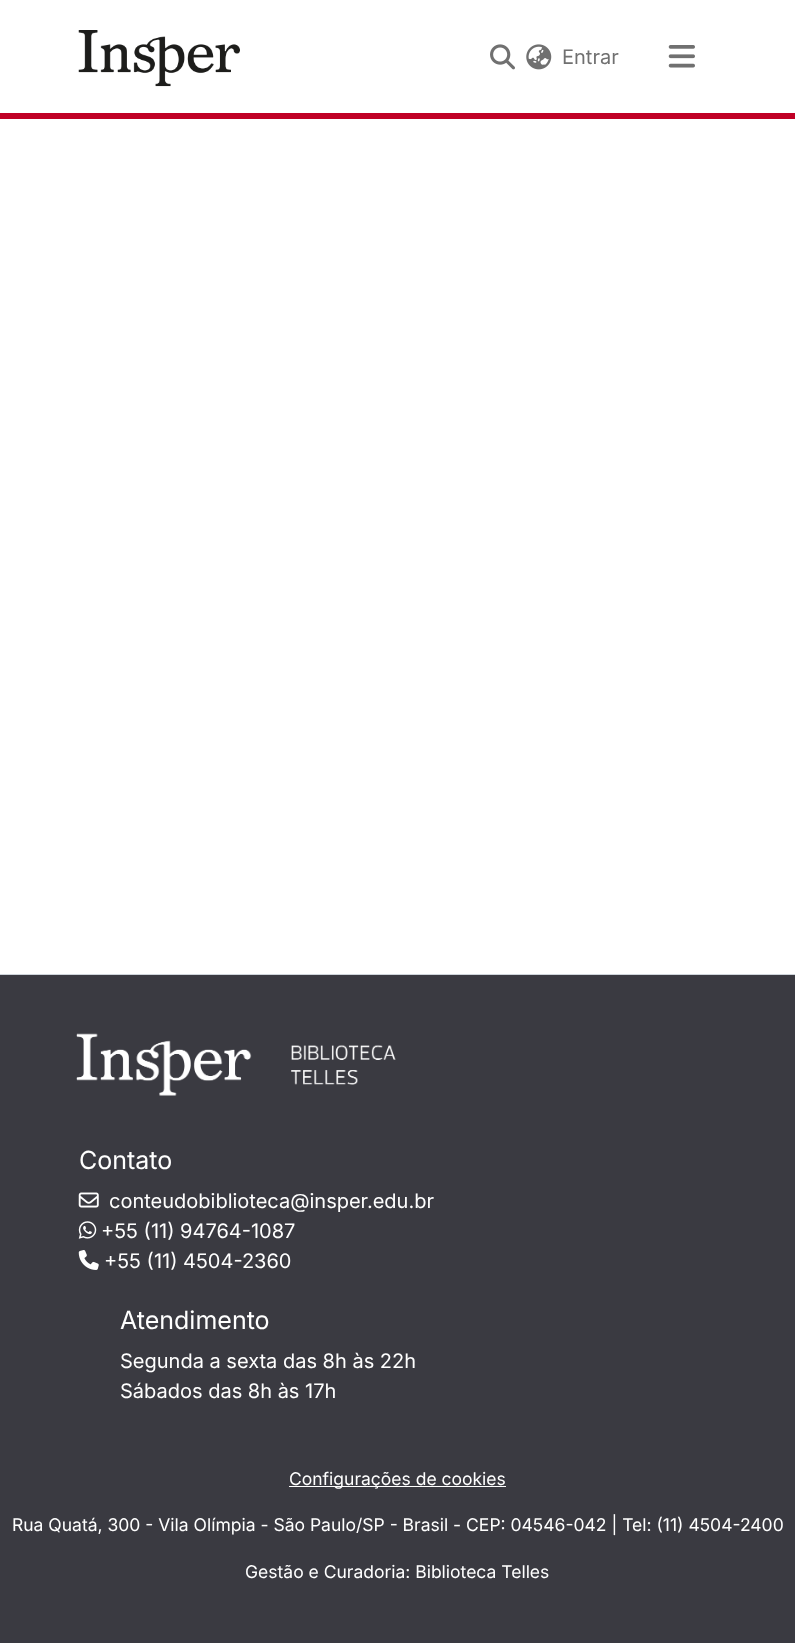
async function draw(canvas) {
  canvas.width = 795;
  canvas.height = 1643;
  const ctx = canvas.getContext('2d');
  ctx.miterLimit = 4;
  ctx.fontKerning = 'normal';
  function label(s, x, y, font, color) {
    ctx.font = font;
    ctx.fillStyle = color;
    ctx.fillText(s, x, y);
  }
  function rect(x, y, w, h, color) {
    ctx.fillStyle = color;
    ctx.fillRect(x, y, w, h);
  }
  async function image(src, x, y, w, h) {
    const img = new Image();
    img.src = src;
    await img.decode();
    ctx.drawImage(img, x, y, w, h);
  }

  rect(0, 0, 795, 1643, '#fff');
  rect(0, 113, 795, 6, '#c00026');
  await image('assets/img1.png', 78, 30, 162, 57);
  await image('assets/img2.png', 490, 44, 25, 26);
  await image('assets/img3.png', 526, 44, 26, 26);
  label('Entrar', 562, 64, '20px Inter', '#707070');
  await image('assets/img4.png', 668, 45, 27, 23);
  rect(0, 975, 795, 668, '#3a3a41');
  rect(0, 974, 795, 1, '#ced4da');
  await image('assets/img5.png', 76, 1033, 320, 63);
  label('Contato', 79, 1169, '25px Inter', '#fff');
  await image('assets/img6.png', 78, 1192, 21, 16);
  label('conteudobiblioteca@insper.edu.br', 109, 1208, '20px Inter', '#fff');
  await image('assets/img7.png', 78, 1221, 19, 18);
  label('+55 (11) 94764-1087', 101, 1238, '20px Inter', '#fff');
  await image('assets/img8.png', 78, 1250, 21, 20);
  label('+55 (11) 4504-2360', 104, 1268, '20px Inter', '#fff');
  label('Atendimento', 120, 1329, '25px Inter', '#fff');
  label('Segunda a sexta das 8h às 22h', 120, 1368, '20px Inter', '#fff');
  label('Sábados das 8h às 17h', 120, 1398, '20px Inter', '#fff');
  rect(289, 1486, 217, 1, '#fff');
  label('Configurações de cookies', 289, 1485, '17.5px Inter', '#fff');
  label('Rua Quatá, 300 - Vila Olímpia - São Paulo/SP - Brasil - CEP: 04546-042 | Tel: (11) 4504-2400', 12, 1531, '17.5px Inter', '#fff');
  label('Gestão e Curadoria: Biblioteca Telles', 245, 1578, '17.5px Inter', '#fff');
}

draw(document.querySelector('canvas'));
